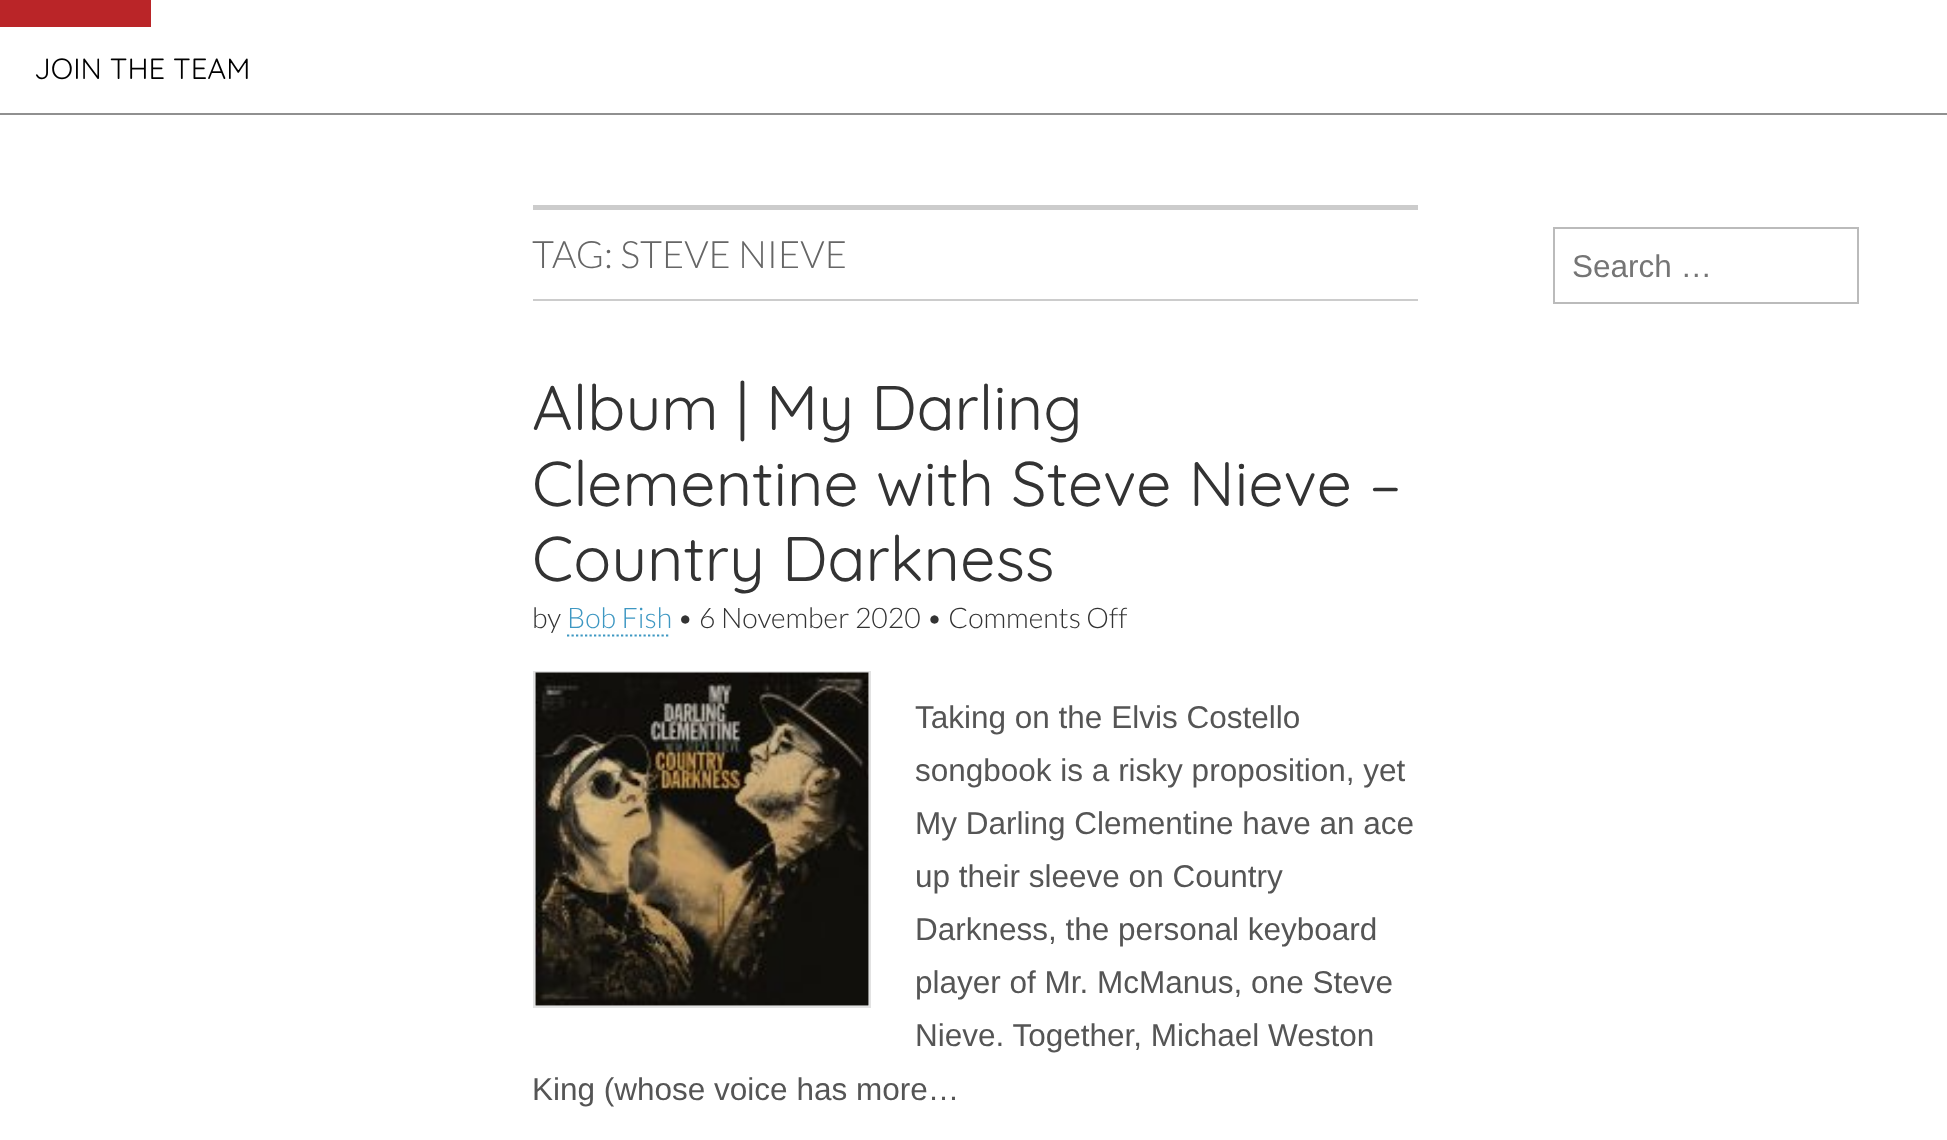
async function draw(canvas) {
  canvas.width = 1947;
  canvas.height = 1140;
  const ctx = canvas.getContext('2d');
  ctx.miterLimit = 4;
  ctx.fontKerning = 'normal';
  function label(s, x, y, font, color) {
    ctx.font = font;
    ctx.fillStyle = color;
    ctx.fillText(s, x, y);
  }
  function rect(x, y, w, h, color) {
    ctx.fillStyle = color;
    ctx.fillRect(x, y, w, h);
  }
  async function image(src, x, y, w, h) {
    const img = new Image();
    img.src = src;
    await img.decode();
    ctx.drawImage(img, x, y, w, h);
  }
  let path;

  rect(0, 0, 1947, 1140, '#fff');
  rect(0, 113, 1947, 2, '#909090');
  rect(0, 0, 151, 27, '#ba2528');
  label('JOIN THE TEAM', 34, 79, '29.25px Quicksand', '#000');
  rect(533, 205, 885, 5, '#ccc');
  rect(533, 299, 885, 2, '#ccc');
  label('TAG: STEVE NIEVE', 532, 268, '300 37.75px Lato', '#666');
  label('Album | My Darling', 532, 430, '63px Quicksand', '#333');
  label('Clementine with Steve Nieve –', 532, 506, '63px Quicksand', '#333');
  label('Country Darkness', 532, 581, '63px Quicksand', '#333');
  label('by', 532, 628, '300 28.4px Lato', '#333');
  label('Bob Fish', 567, 628, '300 28.4px Lato', '#3d97c2');
  path = new Path2D('M567 635.5H670.5');
  ctx.strokeStyle = '#3d97c2';
  ctx.lineWidth = 2.2;
  ctx.setLineDash([2.25, 2.25]);
  ctx.stroke(path);
  label('• 6 November 2020 • Comments Off', 677, 628, '300 28.4px Lato', '#333');
  ctx.strokeStyle = '#e2e2e2';
  ctx.lineWidth = 2;
  ctx.setLineDash([]);
  ctx.strokeRect(534, 672, 336, 335);
  await image('assets/img1.png', 535, 672, 334, 334);
  label('Taking on the Elvis Costello', 915, 728, '31.5px Liberation Sans', '#555');
  label('songbook is a risky proposition, yet', 915, 781, '31.5px Liberation Sans', '#555');
  label('My Darling Clementine have an ace', 915, 834, '31.5px Liberation Sans', '#555');
  label('up their sleeve on Country', 915, 887, '31.5px Liberation Sans', '#555');
  label('Darkness, the personal keyboard', 915, 940, '31.5px Liberation Sans', '#555');
  label('player of Mr. McManus, one Steve', 915, 993, '31.5px Liberation Sans', '#555');
  label('Nieve. Together, Michael Weston', 915, 1046, '31.5px Liberation Sans', '#555');
  label('King (whose voice has more…', 532, 1100, '31.5px Liberation Sans', '#555');
  ctx.strokeStyle = '#bbb';
  ctx.strokeRect(1554, 228, 304, 75);
  label('Search …', 1572, 277, '31.5px Liberation Sans', '#757575');
}

draw(document.querySelector('canvas'));
